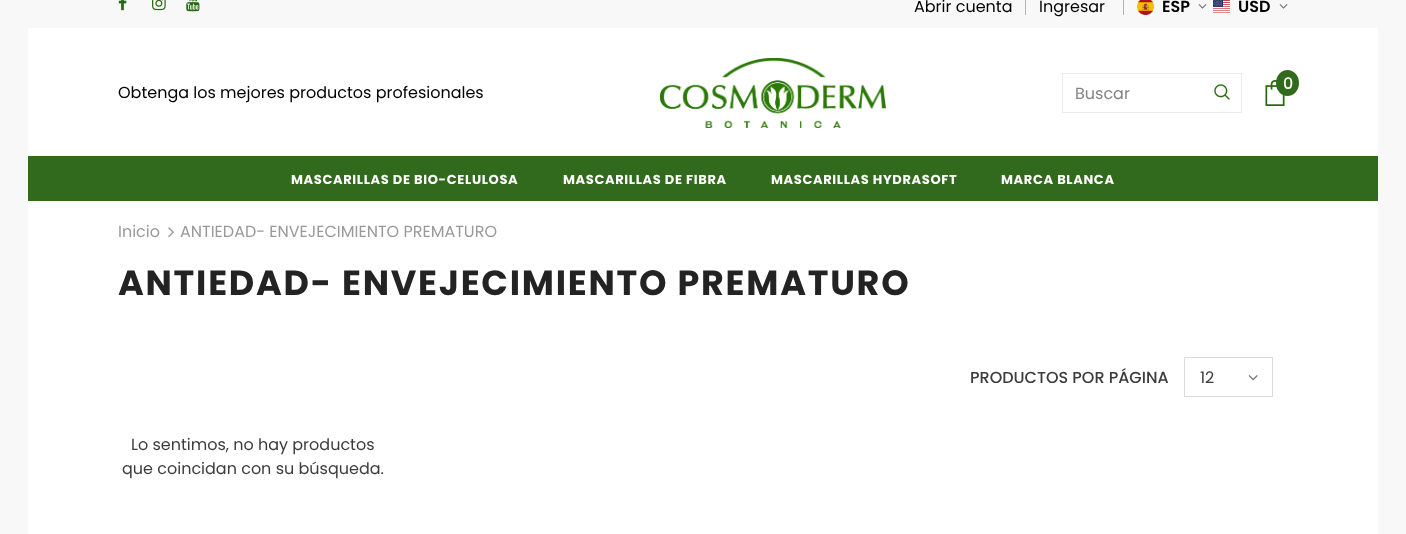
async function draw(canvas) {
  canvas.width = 1406;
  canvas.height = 534;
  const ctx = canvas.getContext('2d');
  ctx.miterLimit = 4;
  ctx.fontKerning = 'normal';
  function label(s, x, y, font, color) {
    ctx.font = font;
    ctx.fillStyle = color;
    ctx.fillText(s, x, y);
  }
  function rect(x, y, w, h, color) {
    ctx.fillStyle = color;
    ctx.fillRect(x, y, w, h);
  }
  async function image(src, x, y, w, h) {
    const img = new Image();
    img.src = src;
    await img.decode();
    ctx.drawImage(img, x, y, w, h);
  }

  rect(0, 0, 1406, 534, '#f8f8f8');
  rect(28, 28, 1350, 128, '#fff');
  await image('assets/img1.png', 118, 0, 9, 11);
  await image('assets/img2.png', 152, 0, 14, 11);
  await image('assets/img3.png', 186, 0, 14, 12);
  label('Abrir cuenta', 914, 12, '16px Poppins', '#000');
  rect(1025, 0, 1, 15, '#b3b3b3');
  label('Ingresar', 1039, 12, '16px Poppins', '#000');
  rect(1123, 0, 1, 15, '#b3b3b3');
  await image('assets/img4.png', 1137, 0, 17, 15);
  label('ESP', 1162, 12, '600 16px Poppins', '#000');
  await image('assets/img5.png', 1198, 4, 9, 5);
  await image('assets/img6.png', 1213, 0, 17, 13);
  label('USD', 1238, 12, '600 16px Poppins', '#000');
  await image('assets/img5.png', 1279, 4, 9, 5);
  label('Obtenga los mejores productos profesionales', 118, 98, '16px Poppins', '#000');
  await image('assets/img7.png', 660, 58, 226, 70);
  await image('assets/img8.png', 1265, 80, 20, 26);
  ctx.fillStyle = '#316a1c';
  ctx.beginPath();
  ctx.ellipse(1287.5, 83, 11.5, 13, 0, 0, 2 * Math.PI);
  ctx.fill();
  label('0', 1283, 89, '500 16px Poppins', '#fff');
  ctx.strokeStyle = '#ebebeb';
  ctx.strokeRect(1062.5, 73.5, 179, 39);
  label('Buscar', 1075, 99, '16px Poppins', '#848484');
  await image('assets/img9.png', 1214, 84, 16, 16);
  rect(28, 201, 1350, 333, '#fff');
  ctx.fillStyle = '#0000001a';
  ctx.filter = 'blur(1.5px)';
  ctx.beginPath();
  ctx.rect(31, 162, 1344, 39);
  ctx.fill();
  ctx.filter = 'none';
  rect(28, 156, 1350, 45, '#316a1c');
  ctx.letterSpacing = '0.65px';
  label('MASCARILLAS DE BIO-CELULOSA', 291, 184, 'bold 13px Poppins', '#fff');
  label('MASCARILLAS DE FIBRA', 563, 184, 'bold 13px Poppins', '#fff');
  label('MASCARILLAS HYDRASOFT', 771, 184, 'bold 13px Poppins', '#fff');
  label('MARCA BLANCA', 1001, 184, 'bold 13px Poppins', '#fff');
  ctx.letterSpacing = '0px';
  label('Inicio', 118, 237, '16px Poppins', '#999');
  await image('assets/img10.png', 168, 227, 6, 11);
  label('ANTIEDAD- ENVEJECIMIENTO PREMATURO', 180, 237, '16px Poppins', '#999');
  ctx.letterSpacing = '1.75px';
  label('ANTIEDAD- ENVEJECIMIENTO PREMATURO', 118, 295, 'bold 35px Poppins', '#232323');
  ctx.letterSpacing = '0px';
  label('PRODUCTOS POR PÁGINA', 970, 383, '500 16px Poppins', '#3c3c3c');
  ctx.strokeStyle = '#dadada';
  ctx.strokeRect(1184.5, 357.5, 88, 39);
  label('12', 1200, 383, '16px Poppins', '#3c3c3c');
  await image('assets/img11.png', 1248, 375, 10, 6);
  label('Lo sentimos, no hay productos', 131, 450, '16px Poppins', '#3c3c3c');
  label('que coincidan con su búsqueda.', 122, 474, '16px Poppins', '#3c3c3c');
}

draw(document.querySelector('canvas'));
